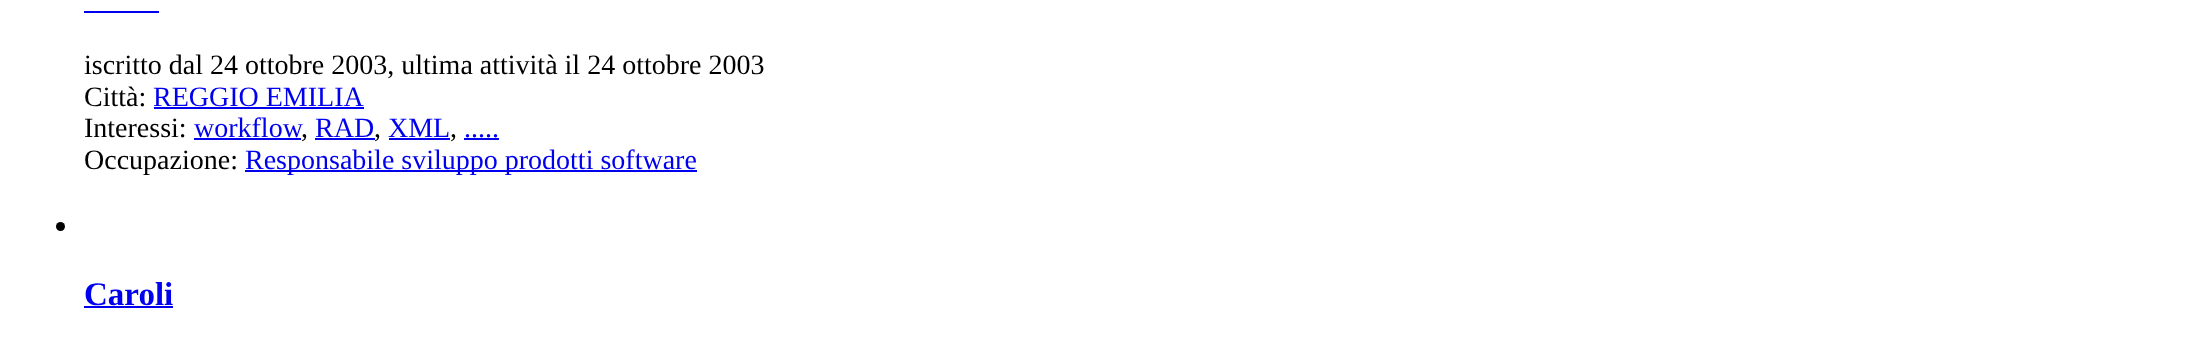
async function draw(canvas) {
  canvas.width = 2205;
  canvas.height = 350;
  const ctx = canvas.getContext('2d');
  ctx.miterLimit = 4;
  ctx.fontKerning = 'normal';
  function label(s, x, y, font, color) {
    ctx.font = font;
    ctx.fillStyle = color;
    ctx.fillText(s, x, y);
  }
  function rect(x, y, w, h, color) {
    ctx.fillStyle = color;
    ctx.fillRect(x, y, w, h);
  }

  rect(0, 0, 2205, 350, '#fff');
  rect(84, 11, 75, 2, '#00e');
  label('iscritto dal 24 ottobre 2003, ultima attività il 24 ottobre 2003', 84, 74, '28px Liberation Serif', '#000');
  label('Città:', 84, 106, '28px Liberation Serif', '#000');
  label('REGGIO EMILIA', 153, 106, '28px Liberation Serif', '#00e');
  rect(154, 107, 210, 2, '#00e');
  label('Interessi:', 84, 137, '28px Liberation Serif', '#000');
  label('workflow', 194, 137, '28px Liberation Serif', '#00e');
  rect(194, 138, 107, 2, '#00e');
  label('RAD', 315, 137, '28px Liberation Serif', '#00e');
  rect(315, 138, 60, 2, '#00e');
  label('XML', 388, 137, '28px Liberation Serif', '#00e');
  rect(389, 138, 61, 2, '#00e');
  label(',', 301, 137, '28px Liberation Serif', '#000');
  label(',', 374, 137, '28px Liberation Serif', '#000');
  label(',', 450, 137, '28px Liberation Serif', '#000');
  label('.....', 464, 137, '28px Liberation Serif', '#00e');
  rect(464, 138, 35, 2, '#00e');
  label('Occupazione:', 84, 169, '28px Liberation Serif', '#000');
  rect(245, 170, 452, 2, '#00e');
  label('Responsabile sviluppo prodotti software', 245, 169, '28px Liberation Serif', '#00e');
  ctx.fillStyle = '#000';
  ctx.beginPath();
  ctx.arc(60.5, 226.5, 4.5, 0, 2 * Math.PI);
  ctx.fill();
  label('Caroli', 84, 305, 'bold 33px Liberation Serif', '#00e');
  rect(84, 306, 89, 2, '#00e');
}

draw(document.querySelector('canvas'));
